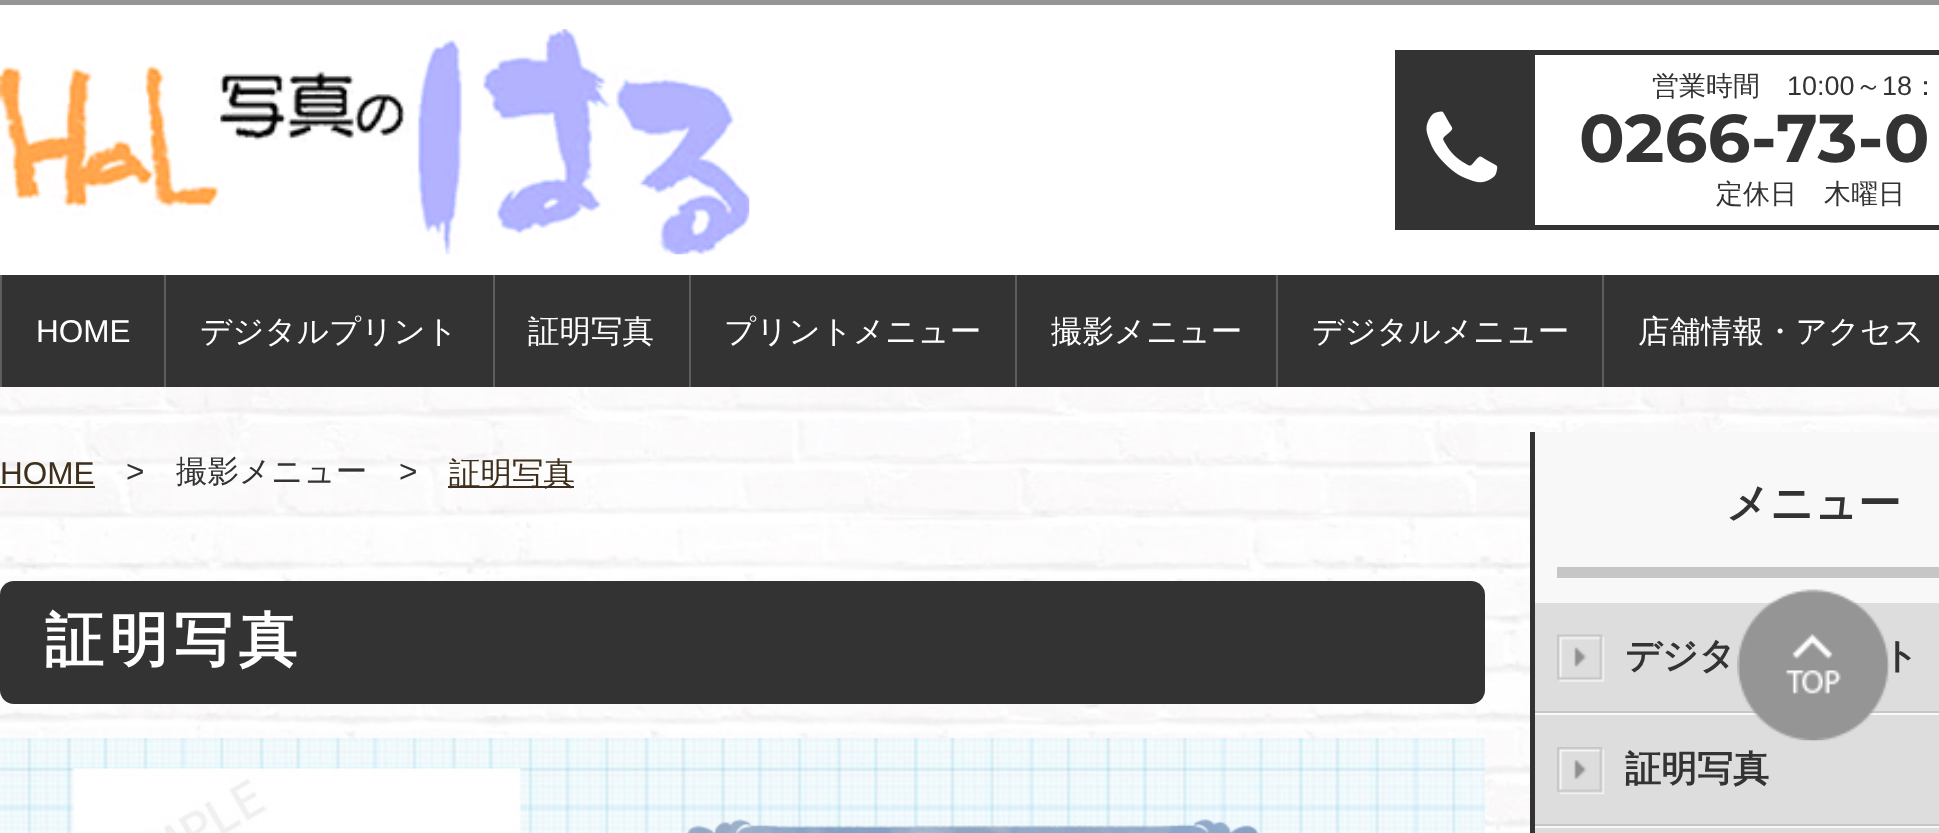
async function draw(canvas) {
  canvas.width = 1939;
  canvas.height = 833;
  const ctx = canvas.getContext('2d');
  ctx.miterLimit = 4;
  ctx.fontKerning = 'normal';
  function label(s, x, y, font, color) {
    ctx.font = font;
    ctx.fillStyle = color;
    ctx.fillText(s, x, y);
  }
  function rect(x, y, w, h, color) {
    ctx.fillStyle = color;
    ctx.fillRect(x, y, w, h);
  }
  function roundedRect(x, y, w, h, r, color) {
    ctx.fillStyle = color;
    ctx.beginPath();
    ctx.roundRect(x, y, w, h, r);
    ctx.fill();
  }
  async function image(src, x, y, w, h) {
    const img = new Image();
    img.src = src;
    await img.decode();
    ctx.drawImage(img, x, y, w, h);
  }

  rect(0, 0, 1939, 833, '#fff');
  await image('assets/img1.png', 0, 387, 1939, 446);
  rect(0, 0, 1939, 5, '#959595');
  await image('assets/img2.png', 0, 29, 750, 226);
  rect(1395, 50, 135, 180, '#333');
  await image('assets/img3.png', 1426, 111, 72, 72);
  ctx.strokeStyle = '#333';
  ctx.lineWidth = 5;
  ctx.strokeRect(1532.5, 52.5, 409, 175);
  label('営業時間', 1652, 95, '500 27px WenQuanYi Zen Hei', '#333');
  label('10:00', 1787, 95, '27px Liberation Sans', '#333');
  label('～', 1855, 95, '500 27px WenQuanYi Zen Hei', '#333');
  label('18', 1882, 95, '27px Liberation Sans', '#333');
  label('：', 1912, 95, '500 27px WenQuanYi Zen Hei', '#333');
  label('0266-73-0', 1579, 162, 'bold 67.5px Montserrat', '#333');
  label('定休日　木曜日', 1716, 203, '500 27px WenQuanYi Zen Hei', '#333');
  rect(2, 275, 1937, 112, '#333');
  rect(0, 275, 2, 112, '#5e5e5e');
  rect(164, 275, 2, 112, '#5e5e5e');
  label('HOME', 36, 342, '31.5px Liberation Sans', '#fff');
  rect(493, 275, 2, 112, '#5e5e5e');
  label('デジタルプリント', 200, 342, '500 31.5px WenQuanYi Zen Hei', '#fff');
  rect(689, 275, 2, 112, '#5e5e5e');
  label('証明写真', 528, 342, '500 31.5px WenQuanYi Zen Hei', '#fff');
  rect(1015, 275, 2, 112, '#5e5e5e');
  label('プリントメニュー', 724, 342, '500 31.5px WenQuanYi Zen Hei', '#fff');
  rect(1276, 275, 2, 112, '#5e5e5e');
  label('撮影メニュー', 1051, 342, '500 31.5px WenQuanYi Zen Hei', '#fff');
  rect(1602, 275, 2, 112, '#5e5e5e');
  label('デジタルメニュー', 1312, 342, '500 31.5px WenQuanYi Zen Hei', '#fff');
  label('店舗情報・アクセス', 1638, 342, '500 31.5px WenQuanYi Zen Hei', '#fff');
  label('HOME', 0, 484, '31.5px Liberation Sans', '#3e2e1c');
  rect(0, 486, 95, 2, '#3e2e1c');
  label('>', 126, 482, '31.5px Liberation Sans', '#333');
  label('撮影メニュー', 176, 482, '500 31.5px WenQuanYi Zen Hei', '#333');
  label('>', 399, 482, '31.5px Liberation Sans', '#333');
  rect(448, 486, 126, 2, '#3e2e1c');
  label('証明写真', 449, 484, '500 31.5px WenQuanYi Zen Hei', '#3e2e1c');
  roundedRect(0, 581, 1485, 123, 14, '#333');
  ctx.letterSpacing = '6px';
  label('証明写真', 45, 660, 'bold 58.5px WenQuanYi Zen Hei', '#fff');
  await image('assets/img4.png', 0, 738, 1485, 95);
  rect(1535, 432, 404, 171, '#f8f8f8');
  rect(1530, 432, 5, 401, '#333');
  rect(1557, 567, 382, 11, '#c6c6c6');
  ctx.letterSpacing = '0px';
  label('メニュー', 1726, 518, 'bold 43px WenQuanYi Zen Hei', '#333');
  rect(1535, 603, 404, 108, '#ddd');
  rect(1535, 711, 404, 2, '#c6c6c6');
  await image('assets/img5.png', 1557, 634, 48, 48);
  label('デジタ', 1625, 668, 'bold 36px WenQuanYi Zen Hei', '#333');
  label('ト', 1882, 668, 'bold 36px WenQuanYi Zen Hei', '#333');
  rect(1535, 715, 404, 109, '#ddd');
  rect(1535, 713, 404, 2, '#f8f8f8');
  rect(1535, 824, 404, 2, '#c6c6c6');
  await image('assets/img6.png', 1557, 747, 48, 48);
  label('証明写真', 1625, 781, 'bold 36px WenQuanYi Zen Hei', '#333');
  rect(1535, 828, 404, 5, '#ddd');
  rect(1535, 826, 404, 2, '#f8f8f8');
  await image('assets/img7.png', 1737, 589, 153, 152);
}

draw(document.querySelector('canvas'));
